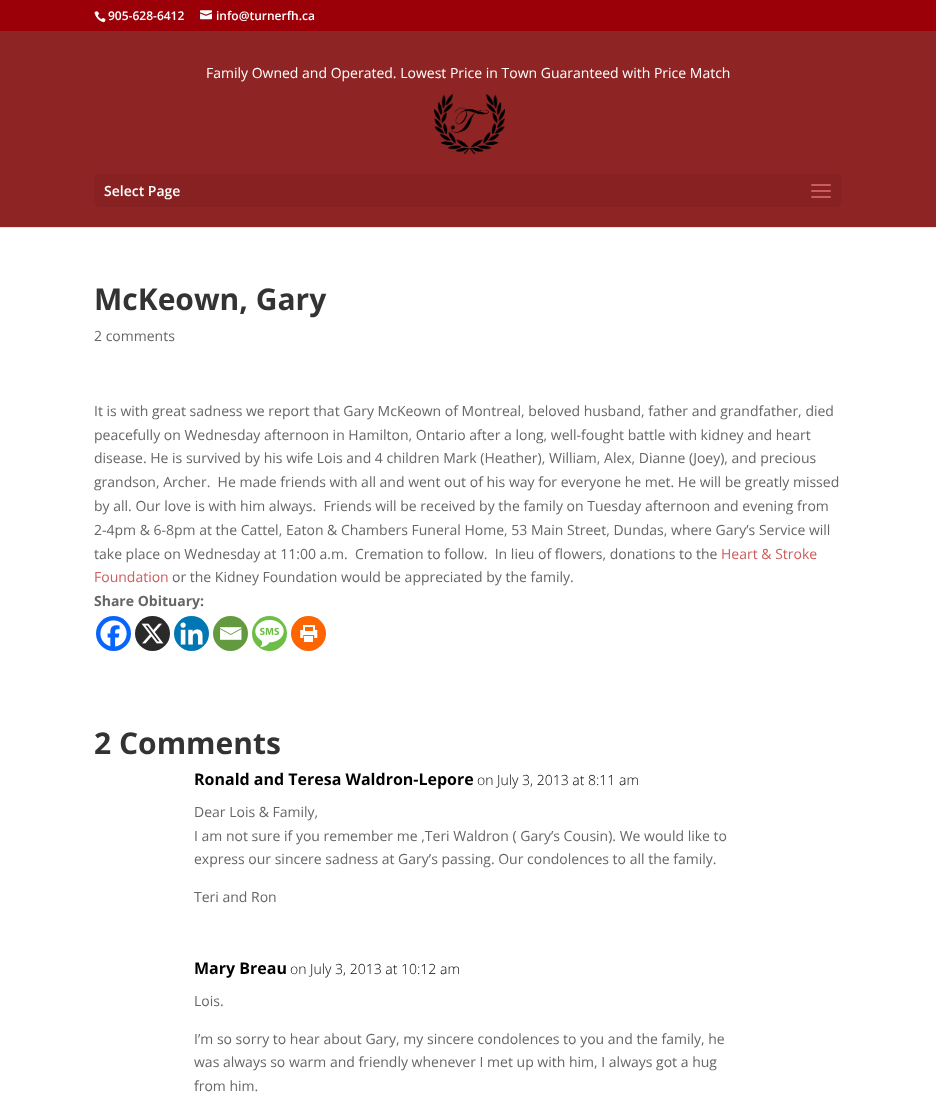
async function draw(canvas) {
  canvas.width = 936;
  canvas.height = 1117;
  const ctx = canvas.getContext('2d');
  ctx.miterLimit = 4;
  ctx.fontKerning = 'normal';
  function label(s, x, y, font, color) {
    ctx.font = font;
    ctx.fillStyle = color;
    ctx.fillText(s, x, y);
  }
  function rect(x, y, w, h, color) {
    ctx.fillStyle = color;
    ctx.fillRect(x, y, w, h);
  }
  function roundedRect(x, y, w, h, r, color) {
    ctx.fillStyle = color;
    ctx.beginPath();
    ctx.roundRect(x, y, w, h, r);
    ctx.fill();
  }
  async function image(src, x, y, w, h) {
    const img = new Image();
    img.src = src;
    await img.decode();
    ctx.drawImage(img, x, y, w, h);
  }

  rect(0, 0, 936, 1117, '#fff');
  rect(0, 0, 936, 31, '#9b0008');
  await image('assets/img1.png', 94, 11, 12, 12);
  label('905-628-6412', 108, 20, '600 12px Open Sans', '#fff');
  await image('assets/img2.png', 200, 10, 12, 10);
  label('info@turnerfh.ca', 216, 20, '600 12px Open Sans', '#fff');
  rect(0, 227, 936, 1, '#e6e6e6');
  rect(0, 31, 936, 196, '#8f2424');
  label('Family Owned and Operated. Lowest Price in Town Guaranteed with Price Match', 206, 78, '14px Open Sans', '#fff');
  await image('assets/img3.png', 434, 94, 71, 60);
  roundedRect(94, 174, 748, 33, 5, '#822');
  label('Select Page', 104, 196, '600 14px Open Sans', '#fff');
  await image('assets/img4.png', 811, 184, 20, 14);
  label('McKeown, Gary', 94, 310, 'bold 30px Open Sans', '#333');
  label('2 comments', 94, 341, '14px Open Sans', '#666');
  label('It is with great sadness we report that Gary McKeown of Montreal, beloved husband, father and grandfather, died', 94, 416, '14px Open Sans', '#666');
  label('peacefully on Wednesday afternoon in Hamilton, Ontario after a long, well-fought battle with kidney and heart', 94, 440, '14px Open Sans', '#666');
  label('disease. He is survived by his wife Lois and 4 children Mark (Heather), William, Alex, Dianne (Joey), and precious', 94, 463, '14px Open Sans', '#666');
  label('grandson, Archer.  He made friends with all and went out of his way for everyone he met. He will be greatly missed', 94, 487, '14px Open Sans', '#666');
  label('by all. Our love is with him always.  Friends will be received by the family on Tuesday afternoon and evening from', 94, 511, '14px Open Sans', '#666');
  label('2-4pm & 6-8pm at the Cattel, Eaton & Chambers Funeral Home, 53 Main Street, Dundas, where Gary’s Service will', 94, 535, '14px Open Sans', '#666');
  label('take place on Wednesday at 11:00 a.m.  Cremation to follow.  In lieu of flowers, donations to the', 94, 559, '14px Open Sans', '#666');
  label('Heart & Stroke', 721, 559, '14px Open Sans', '#cd5c5c');
  label('Foundation', 94, 582, '14px Open Sans', '#cd5c5c');
  label('or the Kidney Foundation would be appreciated by the family.', 172, 582, '14px Open Sans', '#666');
  label('Share Obituary:', 94, 606, 'bold 14px Open Sans', '#666');
  ctx.fillStyle = '#0765fe';
  ctx.beginPath();
  ctx.arc(113.5, 633.5, 17.5, 0, 2 * Math.PI);
  ctx.fill();
  await image('assets/img5.png', 100, 620, 27, 27);
  ctx.fillStyle = '#2a2a2a';
  ctx.beginPath();
  ctx.arc(152.5, 633.5, 17.5, 0, 2 * Math.PI);
  ctx.fill();
  await image('assets/img6.png', 141, 623, 23, 21);
  ctx.fillStyle = '#0077b5';
  ctx.beginPath();
  ctx.arc(191.5, 633.5, 17.5, 0, 2 * Math.PI);
  ctx.fill();
  await image('assets/img7.png', 180, 622, 23, 23);
  ctx.fillStyle = '#649a3f';
  ctx.beginPath();
  ctx.arc(230.5, 633.5, 17.5, 0, 2 * Math.PI);
  ctx.fill();
  await image('assets/img8.png', 220, 627, 22, 13);
  ctx.fillStyle = '#6ebe45';
  ctx.beginPath();
  ctx.arc(269.5, 633.5, 17.5, 0, 2 * Math.PI);
  ctx.fill();
  await image('assets/img9.png', 255, 619, 29, 29);
  ctx.fillStyle = '#fd6500';
  ctx.beginPath();
  ctx.arc(308.5, 633.5, 17.5, 0, 2 * Math.PI);
  ctx.fill();
  await image('assets/img10.png', 300, 625, 18, 17);
  label('2 Comments', 94, 754, 'bold 30px Open Sans', '#333');
  label('Ronald and Teresa Waldron-Lepore', 194, 785, 'bold 16px Open Sans', '#000');
  label('on July 3, 2013 at 8:11 am', 477, 785, '300 14px Open Sans', '#000');
  label('Dear Lois & Family,', 194, 817, '14px Open Sans', '#666');
  label('I am not sure if you remember me ,Teri Waldron ( Gary’s Cousin). We would like to', 194, 841, '14px Open Sans', '#666');
  label('express our sincere sadness at Gary’s passing. Our condolences to all the family.', 194, 864, '14px Open Sans', '#666');
  label('Teri and Ron', 194, 902, '14px Open Sans', '#666');
  label('Mary Breau', 194, 974, 'bold 16px Open Sans', '#000');
  label('on July 3, 2013 at 10:12 am', 290, 974, '300 14px Open Sans', '#000');
  label('Lois.', 194, 1006, '14px Open Sans', '#666');
  label('I’m so sorry to hear about Gary, my sincere condolences to you and the family, he', 194, 1044, '14px Open Sans', '#666');
  label('was always so warm and friendly whenever I met up with him, I always got a hug', 194, 1067, '14px Open Sans', '#666');
  label('from him.', 194, 1091, '14px Open Sans', '#666');
}

draw(document.querySelector('canvas'));
